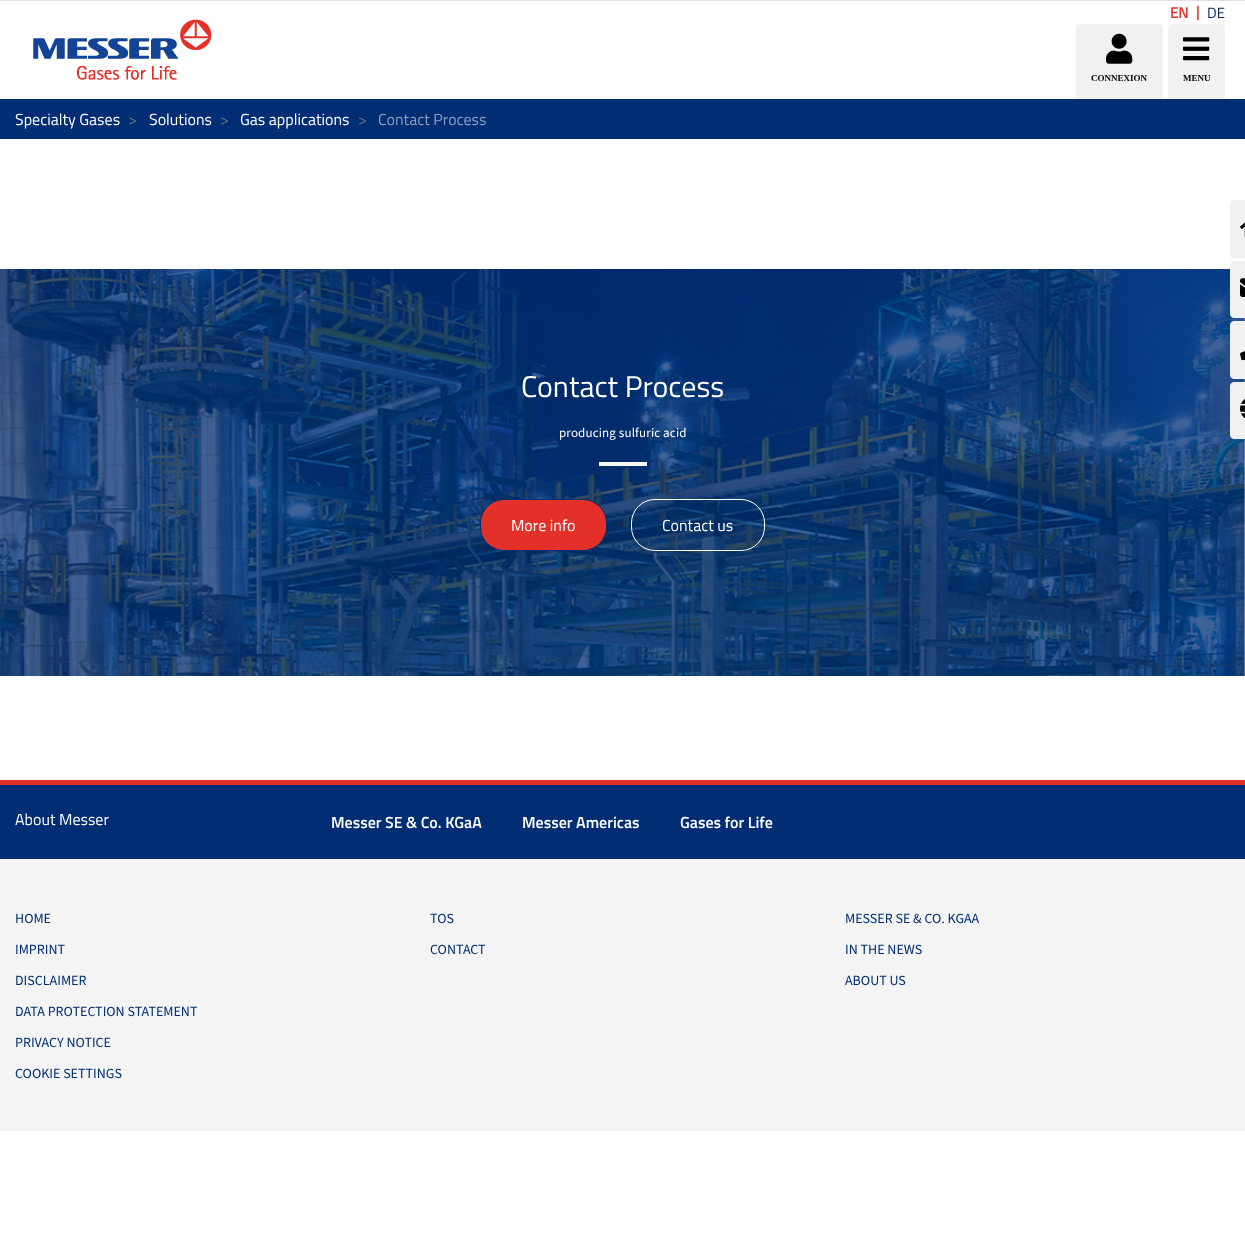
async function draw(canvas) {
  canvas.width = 1245;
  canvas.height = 1233;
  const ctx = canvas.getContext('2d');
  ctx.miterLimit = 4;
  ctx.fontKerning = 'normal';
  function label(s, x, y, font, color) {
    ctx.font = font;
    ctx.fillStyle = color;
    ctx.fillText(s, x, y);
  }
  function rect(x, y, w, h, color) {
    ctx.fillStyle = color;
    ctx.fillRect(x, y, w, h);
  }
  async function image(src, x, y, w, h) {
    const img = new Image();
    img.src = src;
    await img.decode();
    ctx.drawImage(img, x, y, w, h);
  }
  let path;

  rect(0, 0, 1245, 1233, '#fff');
  rect(0, 0, 1245, 1, '#dee2e6');
  label('EN', 1170, 18, 'bold 15px Titillium Web', '#e3312a');
  label('|', 1196, 17, 'bold 15px Titillium Web', '#e3312a');
  label('DE', 1207, 18, '15px Titillium Web', '#032359');
  await image('assets/img1.png', 33, 19, 179, 61);
  ctx.fillStyle = '#f1f1f1';
  ctx.beginPath();
  ctx.roundRect(1076, 24, 87, 75, [4, 4, 0, 0]);
  ctx.fill();
  await image('assets/img2.png', 1106, 33, 27, 31);
  label('CONNEXION', 1091, 81, 'bold 9px Liberation Serif', '#000');
  ctx.fillStyle = '#f1f1f1';
  ctx.beginPath();
  ctx.roundRect(1168, 24, 57, 75, [4, 4, 0, 0]);
  ctx.fill();
  await image('assets/img3.png', 1183, 37, 27, 24);
  label('MENU', 1183, 81, 'bold 9px Liberation Serif', '#000');
  rect(0, 99, 1245, 40, '#002d73');
  label('Specialty Gases', 15, 125, '16px Titillium Web', '#fff');
  label('>', 128, 125, '16px Titillium Web', '#6c757d');
  label('Solutions', 149, 125, '16px Titillium Web', '#fff');
  label('>', 220, 125, '16px Titillium Web', '#6c757d');
  label('Gas applications', 240, 125, '16px Titillium Web', '#fff');
  label('>', 358, 125, '16px Titillium Web', '#6c757d');
  label('Contact Process', 378, 125, '16px Titillium Web', '#8b9ebc');
  await image('assets/img4.png', 0, 269, 1245, 407);
  label('Contact Process', 521, 397, '30px Titillium Web', '#fff');
  ctx.letterSpacing = '0.15px';
  label('producing sulfuric acid', 559, 437, '13px "Source Sans 3"', '#fff');
  rect(599, 462, 48, 4, '#f7f7f7');
  ctx.fillStyle = '#e3312a';
  ctx.beginPath();
  ctx.roundRect(480.5, 499.5, 126, 51, 23.5);
  ctx.fill();
  ctx.strokeStyle = '#002d73';
  ctx.stroke();
  ctx.letterSpacing = '0px';
  label('More info', 511, 531, '16px Titillium Web', '#fff');
  label('>', 615, 529, '16px "Source Sans 3"', '#212529');
  ctx.beginPath();
  ctx.roundRect(631.5, 499.5, 133, 51, 23.5);
  ctx.strokeStyle = '#fff';
  ctx.stroke();
  label('Contact us', 662, 531, '16px Titillium Web', '#fff');
  ctx.fillStyle = '#f1f1f1';
  path = new Path2D('M1234 200H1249V258H1234C1232 258 1230 256 1230 254V204C1230 202 1232 200 1234 200Z');
  ctx.fill(path);
  await image('assets/img5.png', 1240, 222, 5, 16);
  path = new Path2D('M1234 261H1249V318H1234C1232 318 1230 316 1230 314V265C1230 263 1232 261 1234 261Z');
  ctx.fill(path);
  await image('assets/img6.png', 1240, 278, 5, 19);
  path = new Path2D('M1234 321H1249V379H1234C1232 379 1230 377 1230 375V325C1230 323 1232 321 1234 321Z');
  ctx.fill(path);
  await image('assets/img7.png', 1240, 351, 5, 10);
  path = new Path2D('M1234 382H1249V439H1234C1232 439 1230 437 1230 435V386C1230 384 1232 382 1234 382Z');
  ctx.fill(path);
  await image('assets/img8.png', 1240, 399, 5, 20);
  rect(0, 785, 1245, 74, '#002d73');
  rect(0, 780, 1245, 5, '#e3312a');
  label('About Messer', 15, 825, '16px Titillium Web', '#fff');
  label('Messer SE & Co. KGaA', 331, 828, '600 16px Titillium Web', '#fff');
  label('Messer Americas', 522, 828, '600 16px Titillium Web', '#fff');
  label('Gases for Life', 680, 828, '600 16px Titillium Web', '#fff');
  rect(0, 859, 1245, 272, '#f4f4f4');
  label('HOME', 15, 923, '14px "Source Sans 3"', '#002d73');
  label('IMPRINT', 15, 954, '14px "Source Sans 3"', '#002d73');
  label('DISCLAIMER', 15, 985, '14px "Source Sans 3"', '#002d73');
  label('DATA PROTECTION STATEMENT', 15, 1016, '14px "Source Sans 3"', '#002d73');
  label('PRIVACY NOTICE', 15, 1047, '14px "Source Sans 3"', '#002d73');
  label('COOKIE SETTINGS', 15, 1078, '14px "Source Sans 3"', '#002d73');
  label('TOS', 430, 923, '14px "Source Sans 3"', '#002d73');
  label('CONTACT', 430, 954, '14px "Source Sans 3"', '#002d73');
  label('MESSER SE & CO. KGAA', 845, 923, '14px "Source Sans 3"', '#002d73');
  label('IN THE NEWS', 845, 954, '14px "Source Sans 3"', '#002d73');
  label('ABOUT US', 845, 985, '14px "Source Sans 3"', '#002d73');
}

draw(document.querySelector('canvas'));
